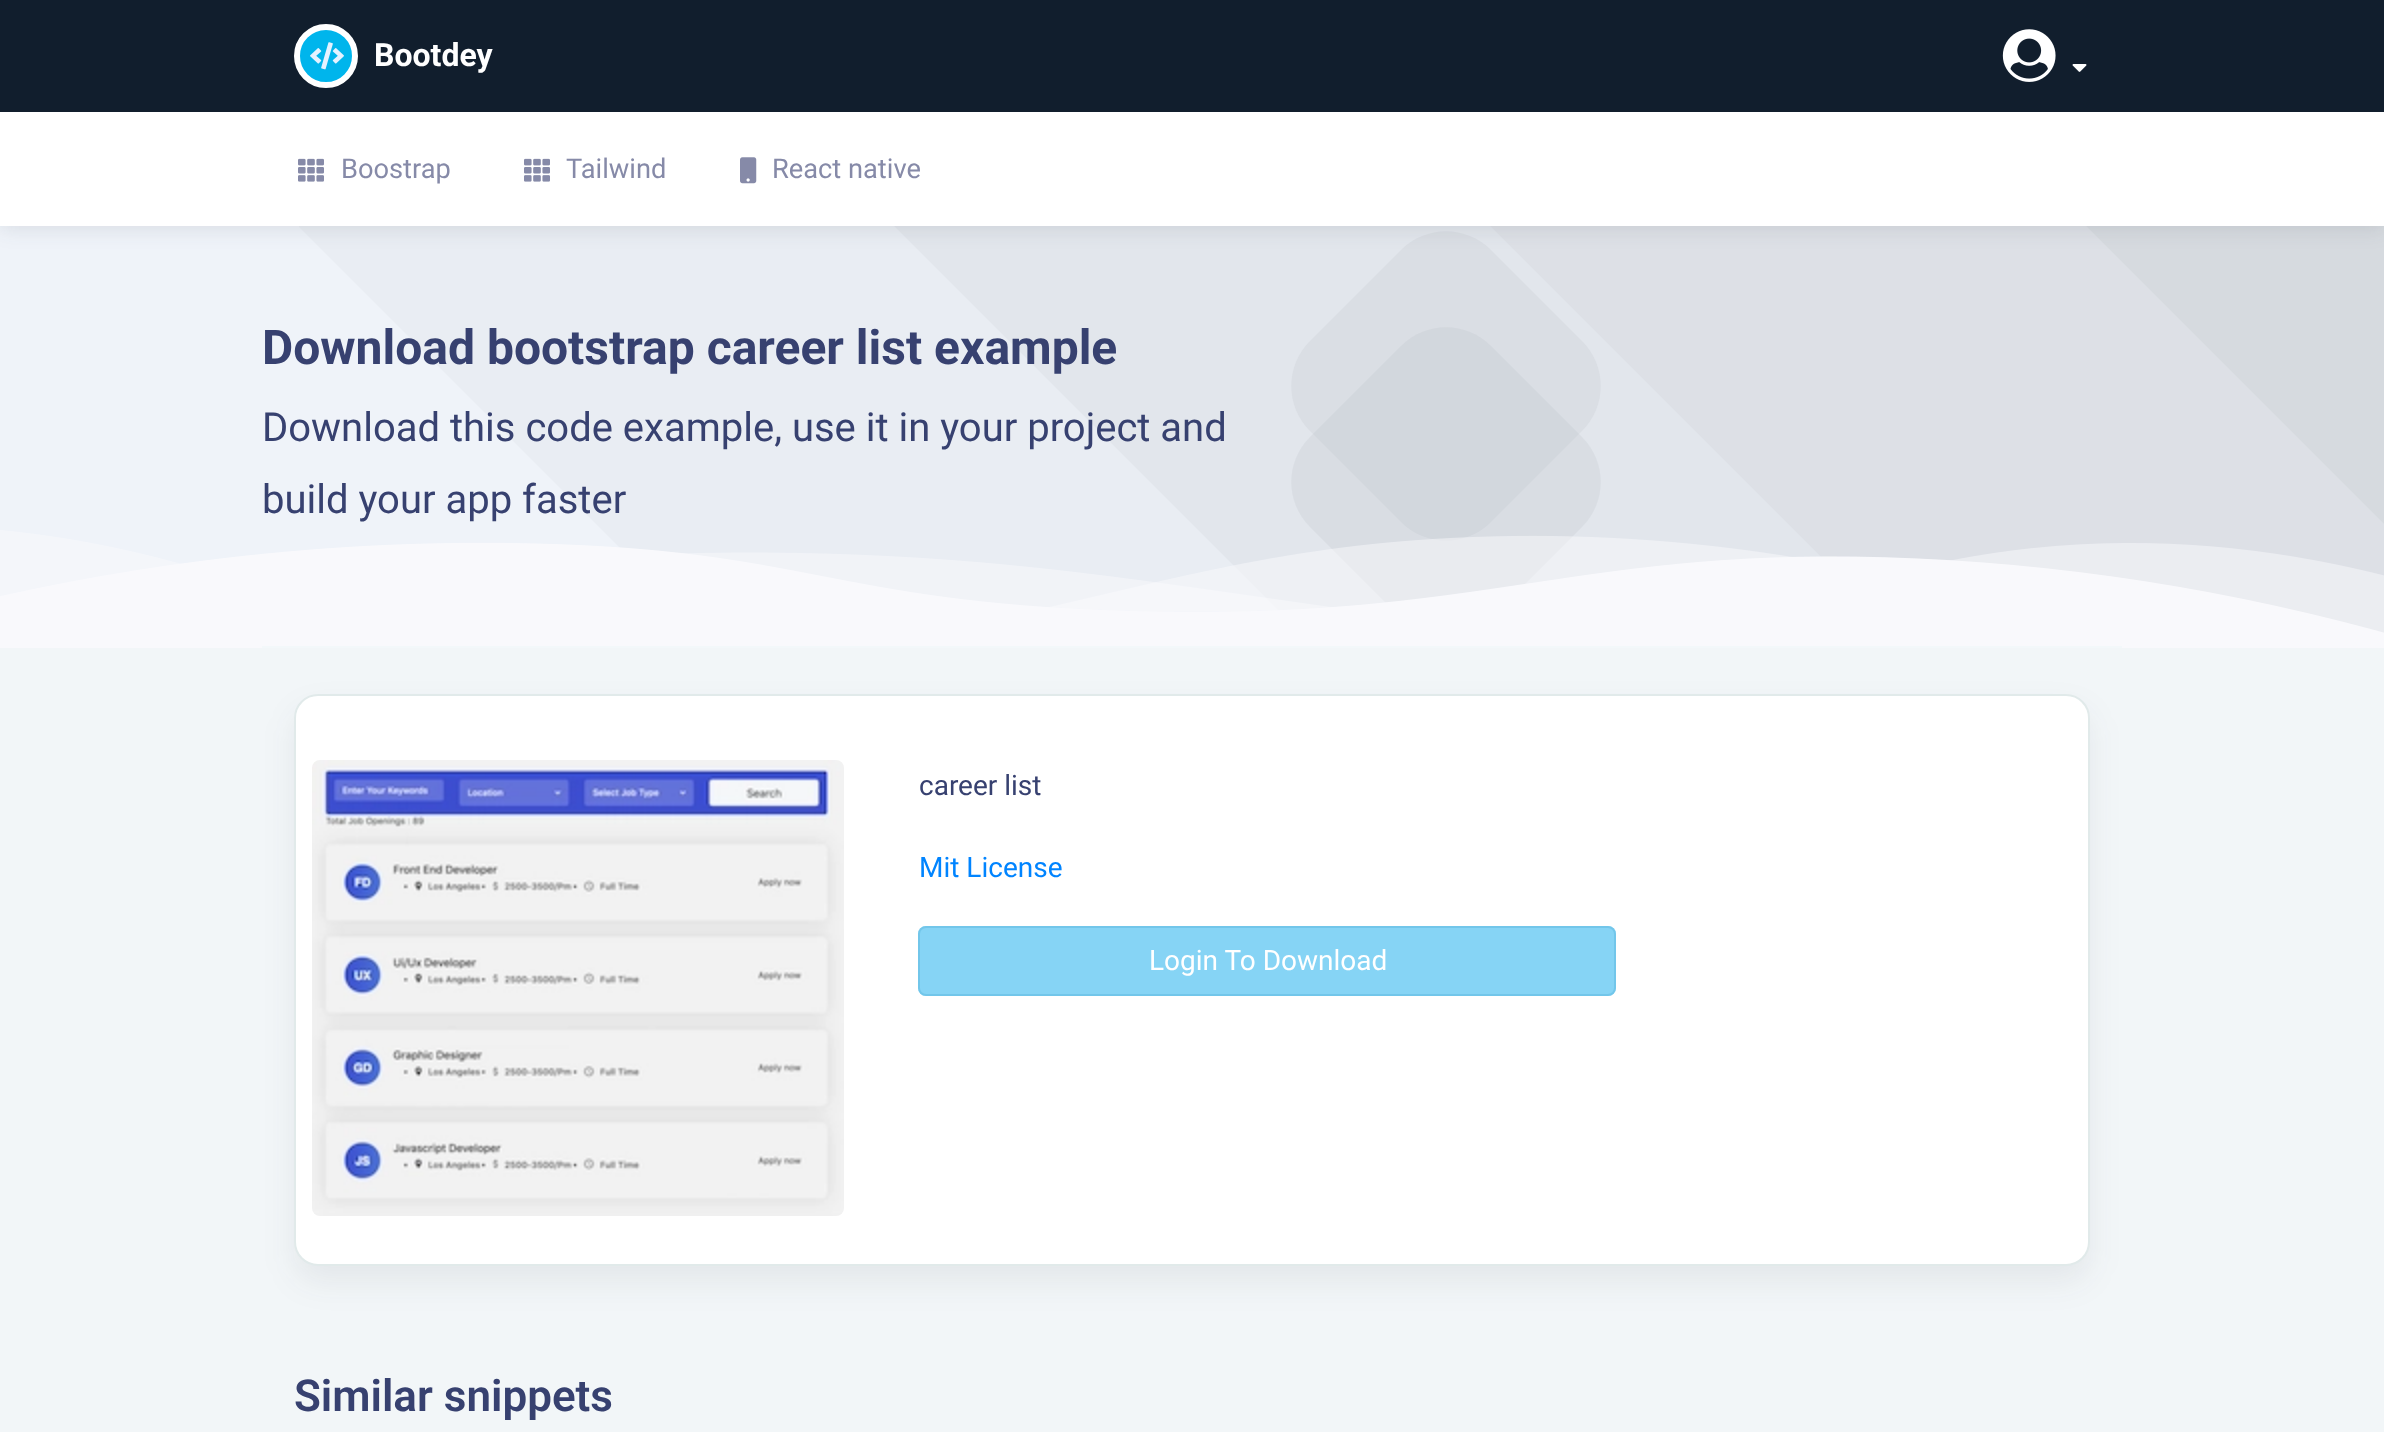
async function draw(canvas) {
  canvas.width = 2384;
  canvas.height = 1432;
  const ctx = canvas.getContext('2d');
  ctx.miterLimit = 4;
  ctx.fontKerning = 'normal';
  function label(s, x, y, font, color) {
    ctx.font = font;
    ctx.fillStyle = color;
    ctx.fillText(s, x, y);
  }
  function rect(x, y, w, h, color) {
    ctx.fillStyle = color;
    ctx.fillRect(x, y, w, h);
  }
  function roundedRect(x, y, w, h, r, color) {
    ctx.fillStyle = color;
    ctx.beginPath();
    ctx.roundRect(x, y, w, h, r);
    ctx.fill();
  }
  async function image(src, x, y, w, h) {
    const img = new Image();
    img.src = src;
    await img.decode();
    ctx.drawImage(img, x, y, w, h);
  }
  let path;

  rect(0, 0, 2384, 1432, '#f2f6f8');
  rect(0, 226, 2384, 407, '#eff3f9');
  await image('assets/img6.png', 299, 226, 2085, 407);
  ctx.fillStyle = '#dadee4';
  path = new Path2D('M1491 250L1582 341C1607 366 1607 406 1582 431L1491 522C1466 547 1426 547 1401 522L1310 431C1285 406 1285 366 1310 341L1401 250C1426 225 1466 225 1491 250Z');
  ctx.fill(path);
  ctx.fillStyle = '#2c2d3a1a';
  ctx.filter = 'blur(10px)';
  ctx.beginPath();
  ctx.rect(0, 116, 2384, 114);
  ctx.fill();
  ctx.filter = 'none';
  rect(0, 0, 2384, 112, '#111e2d');
  ctx.fillStyle = '#00b5ec';
  ctx.beginPath();
  ctx.arc(326, 56, 29, 0, 2 * Math.PI);
  ctx.fill();
  ctx.strokeStyle = '#fff';
  ctx.lineWidth = 6;
  ctx.stroke();
  await image('assets/img1.png', 310, 42, 34, 28);
  label('Bootdey', 374, 66, 'bold 32px Roboto', '#fff');
  await image('assets/img2.png', 2002, 29, 54, 53);
  await image('assets/img3.png', 2072, 64, 15, 8);
  rect(0, 112, 2384, 114, '#fff');
  await image('assets/img4.png', 298, 158, 26, 24);
  label('Boostrap', 341, 178, '27.25px Roboto', '#868aa8');
  await image('assets/img4.png', 524, 158, 26, 24);
  label('Tailwind', 566, 178, '27.25px Roboto', '#868aa8');
  await image('assets/img5.png', 740, 157, 17, 27);
  label('React native', 772, 178, '27.25px Roboto', '#868aa8');
  label('Download bootstrap career list example', 262, 364, 'bold 48px Roboto', '#374170');
  label('Download this code example, use it in your project and', 262, 441, '40px Roboto', '#374170');
  label('build your app faster', 262, 513, '40px Roboto', '#374170');
  ctx.fillStyle = '#a7aeb826';
  path = new Path2D('M1491 346L1582 437C1607 462 1607 502 1582 527L1491 618C1466 643 1426 643 1401 618L1310 527C1285 502 1285 462 1310 437L1401 346C1426 321 1466 321 1491 346Z');
  ctx.fill(path);
  await image('assets/img7.png', 0, 530, 2384, 118);
  rect(262, 646, 1860, 2, '#f3f8fa');
  ctx.fillStyle = '#2b2a3512';
  ctx.filter = 'blur(16px)';
  ctx.beginPath();
  ctx.roundRect(294, 710, 1796, 572, 24);
  ctx.fill();
  ctx.filter = 'none';
  ctx.fillStyle = '#fff';
  ctx.beginPath();
  ctx.roundRect(295, 695, 1794, 570, 23);
  ctx.fill();
  ctx.strokeStyle = '#e1eaea';
  ctx.lineWidth = 2;
  ctx.stroke();
  await image('assets/img8.png', 312, 760, 532, 456);
  label('career list', 919, 795, '28px Roboto', '#374170');
  label('Mit License', 919, 877, '28px Roboto', '#0084ff');
  roundedRect(918, 926, 698, 70, 8, '#86d4f5');
  ctx.beginPath();
  ctx.roundRect(919, 927, 696, 68, 7);
  ctx.strokeStyle = '#69c1e6b3';
  ctx.stroke();
  label('Login To Download', 1149, 970, '28px Roboto', '#fff');
  label('Similar snippets', 294, 1411, '600 44px Roboto', '#374170');
}

draw(document.querySelector('canvas'));
